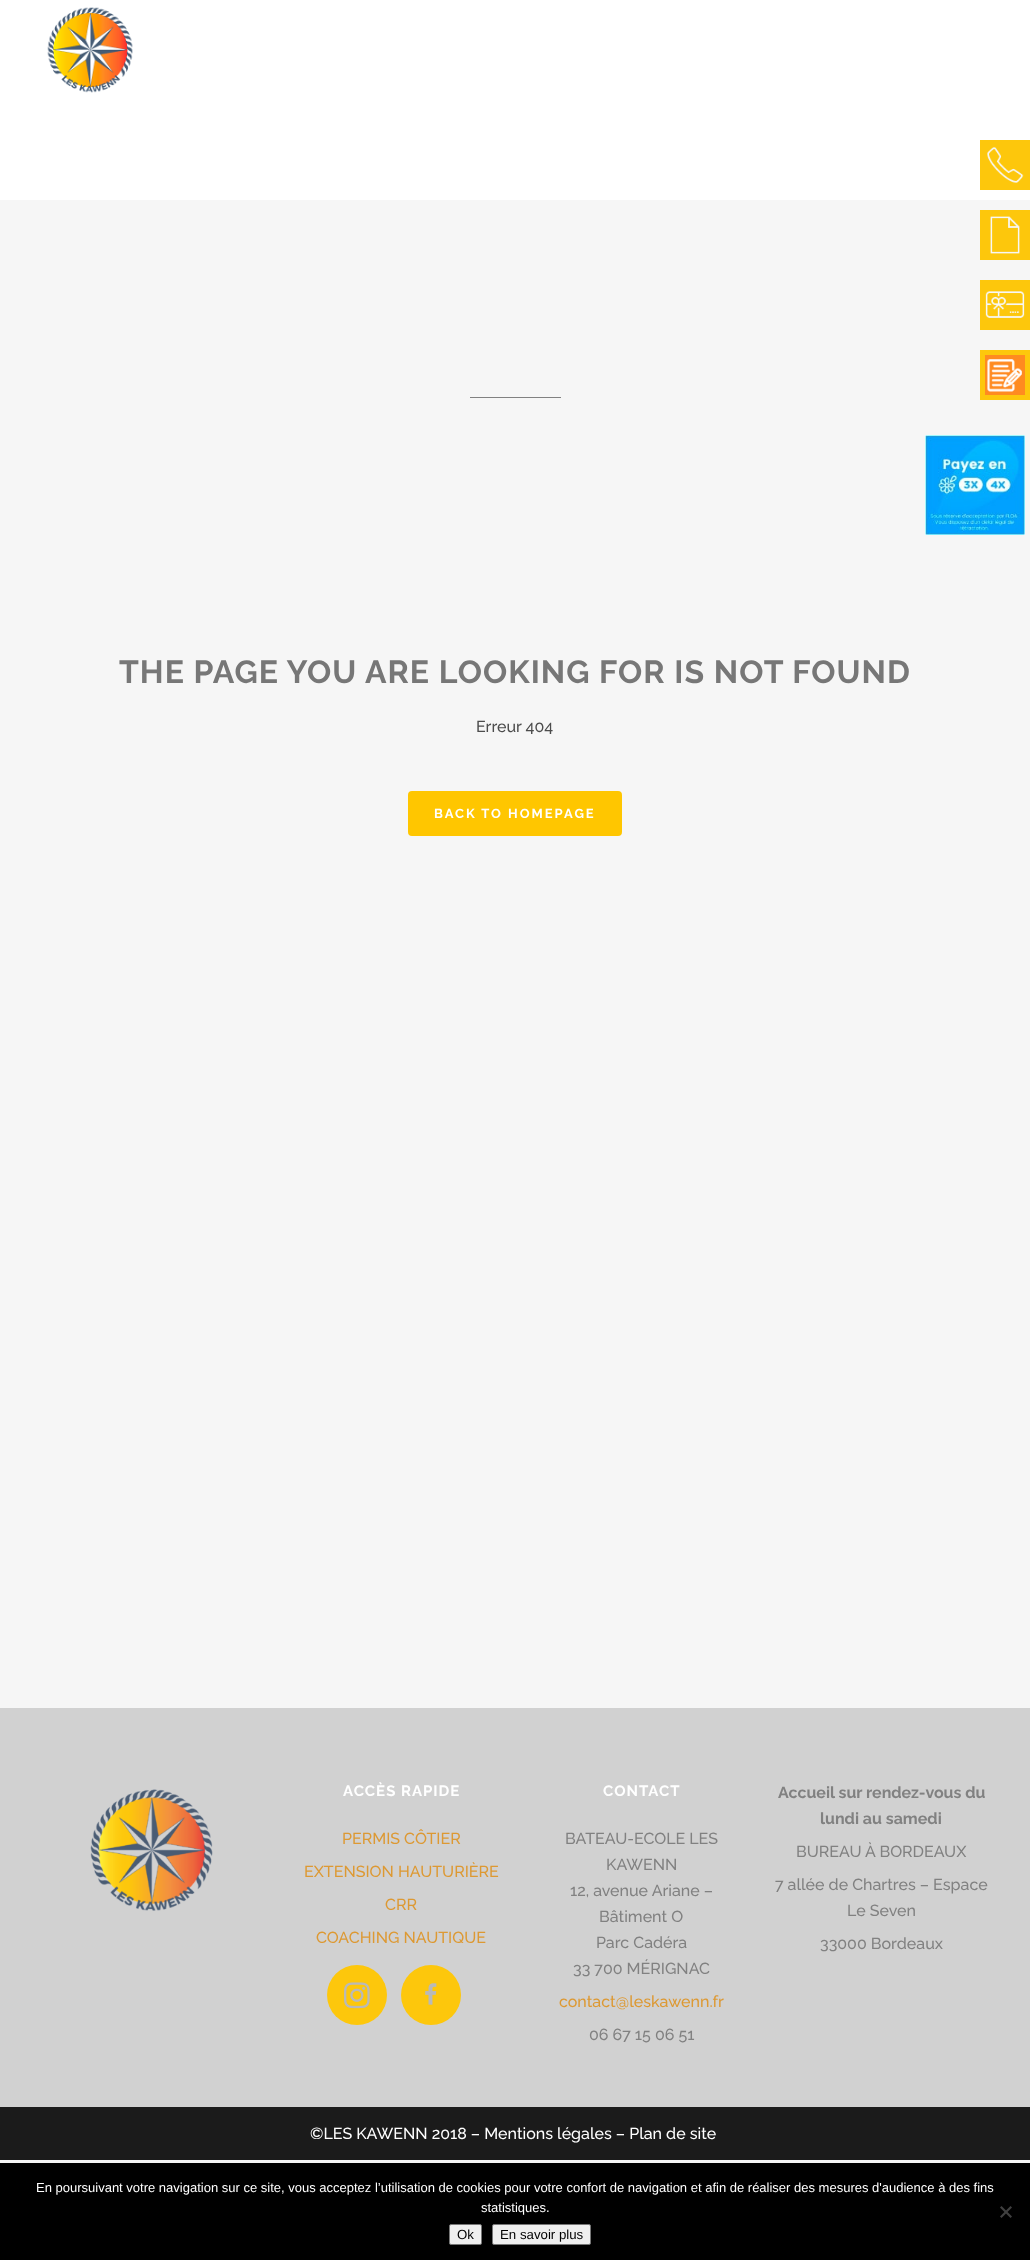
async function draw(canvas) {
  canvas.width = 1030;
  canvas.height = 2260;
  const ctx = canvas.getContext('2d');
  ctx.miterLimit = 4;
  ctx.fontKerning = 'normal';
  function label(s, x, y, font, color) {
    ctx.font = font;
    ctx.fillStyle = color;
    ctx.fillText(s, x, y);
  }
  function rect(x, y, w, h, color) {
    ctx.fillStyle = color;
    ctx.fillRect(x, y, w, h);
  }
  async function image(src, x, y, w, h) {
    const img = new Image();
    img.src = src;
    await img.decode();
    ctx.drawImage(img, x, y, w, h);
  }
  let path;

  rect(0, 0, 1030, 2260, '#f6f6f6');
  rect(0, 0, 1030, 200, '#fff');
  rect(980, 140, 50, 50, '#fdc70c');
  await image('assets/img1.png', 987, 147, 37, 36);
  rect(980, 210, 50, 50, '#fdc70c');
  await image('assets/img2.png', 990, 216, 30, 38);
  rect(980, 280, 50, 50, '#fdc70c');
  await image('assets/img3.png', 985, 291, 40, 27);
  rect(980, 350, 50, 50, '#fdc70c');
  await image('assets/img4.png', 985, 355, 40, 40);
  await image('assets/img5.png', 925, 435, 100, 100);
  await image('assets/img6.png', 47, 7, 86, 86);
  rect(470, 397, 91, 1, '#818181');
  ctx.letterSpacing = '1px';
  label('THE PAGE YOU ARE LOOKING FOR IS NOT FOUND', 119, 683, 'bold 32px Raleway', '#777');
  ctx.letterSpacing = '0px';
  label('Erreur 404', 476, 732, '500 16px Raleway', '#4c4c4c');
  ctx.fillStyle = '#ffc600';
  ctx.beginPath();
  ctx.roundRect(409.5, 792.5, 211, 42, 2.5);
  ctx.fill();
  ctx.strokeStyle = '#ffc600';
  ctx.lineWidth = 3;
  ctx.stroke();
  ctx.letterSpacing = '2px';
  label('BACK TO HOMEPAGE', 434, 818, 'bold 13px Raleway', '#fff');
  rect(0, 1708, 1030, 399, '#d1d1d1');
  await image('assets/img7.png', 90, 1789, 123, 122);
  ctx.letterSpacing = '1px';
  label('ACCÈS RAPIDE', 343, 1796, 'bold 15px Raleway', '#fff');
  ctx.letterSpacing = '0px';
  label('PERMIS CÔTIER', 342, 1844, '500 16px Raleway', '#d93');
  label('EXTENSION HAUTURIÈRE', 304, 1877, '500 16px Raleway', '#d93');
  label('CRR', 385, 1910, '500 16px Raleway', '#d93');
  label('COACHING NAUTIQUE', 316, 1943, '500 16px Raleway', '#d93');
  ctx.fillStyle = '#fdc70c';
  ctx.beginPath();
  ctx.arc(357, 1995, 30, 0, 2 * Math.PI);
  ctx.fill();
  await image('assets/img8.png', 344, 1982, 26, 27);
  ctx.beginPath();
  ctx.arc(431, 1995, 30, 0, 2 * Math.PI);
  ctx.fill();
  await image('assets/img9.png', 425, 1983, 12, 22);
  ctx.letterSpacing = '1px';
  label('CONTACT', 603, 1796, 'bold 15px Raleway', '#fff');
  ctx.letterSpacing = '0px';
  label('BATEAU-ECOLE LES', 565, 1844, '500 16px Raleway', '#818181');
  label('KAWENN', 606, 1870, '500 16px Raleway', '#818181');
  label('12, avenue Ariane –', 570, 1896, '500 16px Raleway', '#818181');
  label('Bâtiment O', 599, 1922, '500 16px Raleway', '#818181');
  label('Parc Cadéra', 596, 1948, '500 16px Raleway', '#818181');
  label('33 700 MÉRIGNAC', 573, 1974, '500 16px Raleway', '#818181');
  label('contact@leskawenn.fr', 559, 2007, '500 16px Raleway', '#d93');
  label('06 67 15 06 51', 589, 2040, '500 16px Raleway', '#818181');
  label('Accueil sur rendez-vous du', 778, 1798, 'bold 16px Raleway', '#818181');
  label('lundi au samedi', 820, 1824, 'bold 16px Raleway', '#818181');
  label('BUREAU À BORDEAUX', 796, 1857, '500 16px Raleway', '#818181');
  label('7 allée de Chartres – Espace', 775, 1890, '500 16px Raleway', '#818181');
  label('Le Seven', 847, 1916, '500 16px Raleway', '#818181');
  label('33000 Bordeaux', 820, 1949, '500 16px Raleway', '#818181');
  rect(0, 2107, 1030, 53, '#1b1b1b');
  label('©LES KAWENN 2018 – Mentions légales – Plan de site', 310, 2139, '500 16px Raleway', '#fff');
  rect(0, 2163, 1030, 97, '#000');
  label('En poursuivant votre navigation sur ce site, vous acceptez l’utilisation de cookies pour votre confort de navigation et afin de réaliser des mesures d\'audience à des fins', 36, 2192, '13px Liberation Sans', '#fff');
  label('statistiques.', 481, 2212, '13px Liberation Sans', '#fff');
  ctx.fillStyle = '#404040';
  path = new Path2D('M1010.5 2206L1012 2207.5L1001.5 2218L1000 2216.5Z');
  ctx.fill(path);
  path = new Path2D('M1000 2207.5L1001.5 2206L1012 2216.5L1010.5 2218Z');
  ctx.fill(path);
  ctx.fillStyle = '#efefef';
  ctx.beginPath();
  ctx.roundRect(449.5, 2224.5, 32, 20, 1.5);
  ctx.fill();
  ctx.strokeStyle = '#767676';
  ctx.lineWidth = 1;
  ctx.stroke();
  label('Ok', 457, 2239, '13.25px Liberation Sans', '#000');
  ctx.fillStyle = '#efefef';
  ctx.beginPath();
  ctx.roundRect(492.5, 2224.5, 98, 20, 1.5);
  ctx.fill();
  ctx.stroke();
  label('En savoir plus', 500, 2239, '13.25px Liberation Sans', '#000');
}

draw(document.querySelector('canvas'));
